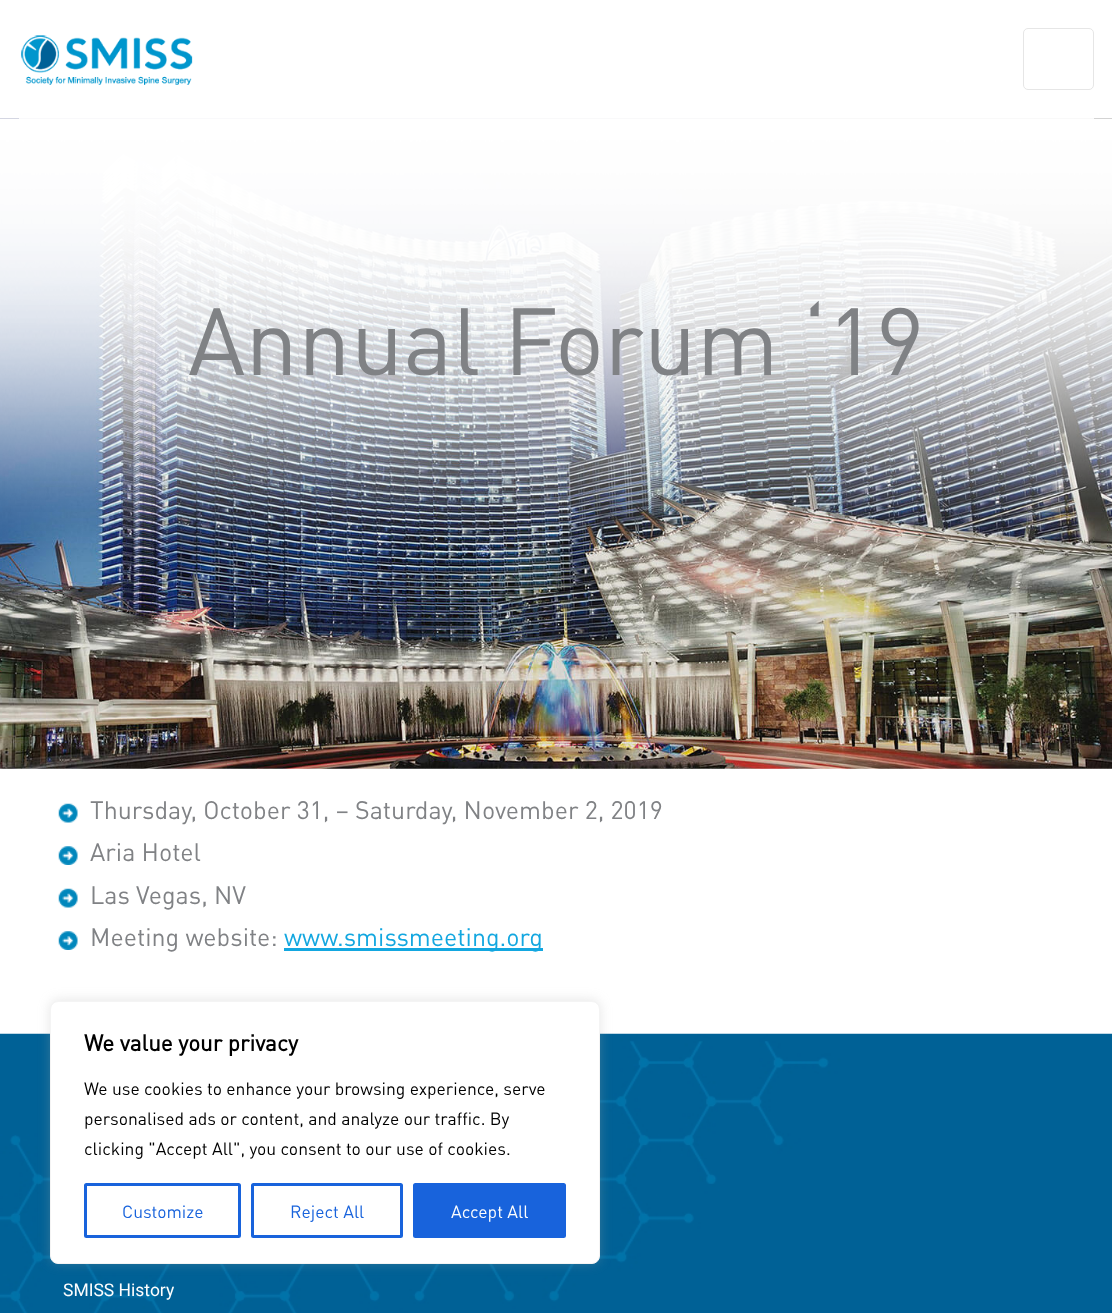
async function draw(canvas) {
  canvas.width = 1112;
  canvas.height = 1313;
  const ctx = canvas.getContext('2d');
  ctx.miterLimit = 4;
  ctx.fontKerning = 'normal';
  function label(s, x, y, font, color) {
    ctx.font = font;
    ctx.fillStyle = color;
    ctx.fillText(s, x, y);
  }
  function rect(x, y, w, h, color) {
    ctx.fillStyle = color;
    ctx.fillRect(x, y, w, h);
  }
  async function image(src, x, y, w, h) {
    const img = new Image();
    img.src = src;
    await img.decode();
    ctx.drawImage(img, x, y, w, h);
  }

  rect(0, 0, 1112, 1313, '#fff');
  await image('assets/img2.png', 0, 118, 1112, 651);
  await image('assets/img3.png', 0, 118, 1112, 430);
  rect(19, 118, 1075, 1, '#ffffffdb');
  await image('assets/img1.png', 21, 35, 172, 50);
  ctx.beginPath();
  ctx.roundRect(1023.5, 28.5, 70, 61, 4.5);
  ctx.strokeStyle = '#e6e6e6';
  ctx.stroke();
  label('Annual Forum ‘19', 188, 375, '93.75px DIN', '#808285');
  await image('assets/img4.png', 58, 803, 20, 20);
  label('Thursday, October 31, – Saturday, November 2, 2019', 90, 819, '25px DIN', '#808285');
  await image('assets/img5.png', 58, 846, 20, 19);
  label('Aria Hotel', 90, 861, '25px DIN', '#808285');
  await image('assets/img4.png', 58, 888, 20, 20);
  label('Las Vegas, NV', 90, 904, '25px DIN', '#808285');
  await image('assets/img5.png', 58, 931, 20, 19);
  label('Meeting website:', 90, 946, '25px DIN', '#808285');
  rect(284, 948, 259, 3, '#13a7e0');
  label('www.smissmeeting.org', 284, 946, '25px DIN', '#13a7e0');
  await image('assets/img6.png', 0, 1033, 1112, 280);
  ctx.fillStyle = '#acabab4d';
  ctx.filter = 'blur(6px)';
  ctx.beginPath();
  ctx.roundRect(50, 1000, 550, 263, 8);
  ctx.fill();
  ctx.filter = 'none';
  ctx.fillStyle = '#fff';
  ctx.beginPath();
  ctx.roundRect(50.5, 1001.5, 549, 262, 7.5);
  ctx.fill();
  ctx.strokeStyle = '#f4f4f4';
  ctx.stroke();
  label('We value your privacy', 84, 1051, 'bold 22.5px DIN', '#000');
  label('We use cookies to enhance your browsing experience, serve', 84, 1095, '17.5px "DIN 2"', '#000');
  label('personalised ads or content, and analyze our traffic. By', 84, 1125, '17.5px "DIN 2"', '#000');
  label('clicking "Accept All", you consent to our use of cookies.', 84, 1155, '17.5px "DIN 2"', '#000');
  ctx.beginPath();
  ctx.roundRect(85.5, 1184.5, 154, 52, 1);
  ctx.strokeStyle = '#1863dc';
  ctx.lineWidth = 3;
  ctx.stroke();
  label('Customize', 122, 1218, '17.5px "DIN 2"', '#1863dc');
  ctx.beginPath();
  ctx.roundRect(252.5, 1184.5, 149, 52, 1);
  ctx.stroke();
  label('Reject All', 290, 1218, '17.5px "DIN 2"', '#1863dc');
  ctx.beginPath();
  ctx.roundRect(414.5, 1184.5, 150, 52, 1);
  ctx.fill();
  ctx.stroke();
  label('Accept All', 451, 1218, '17.5px "DIN 2"', '#fefefe');
  label('SMISS History', 63, 1296, '17.5px Roboto', '#fefefe');
}

draw(document.querySelector('canvas'));
